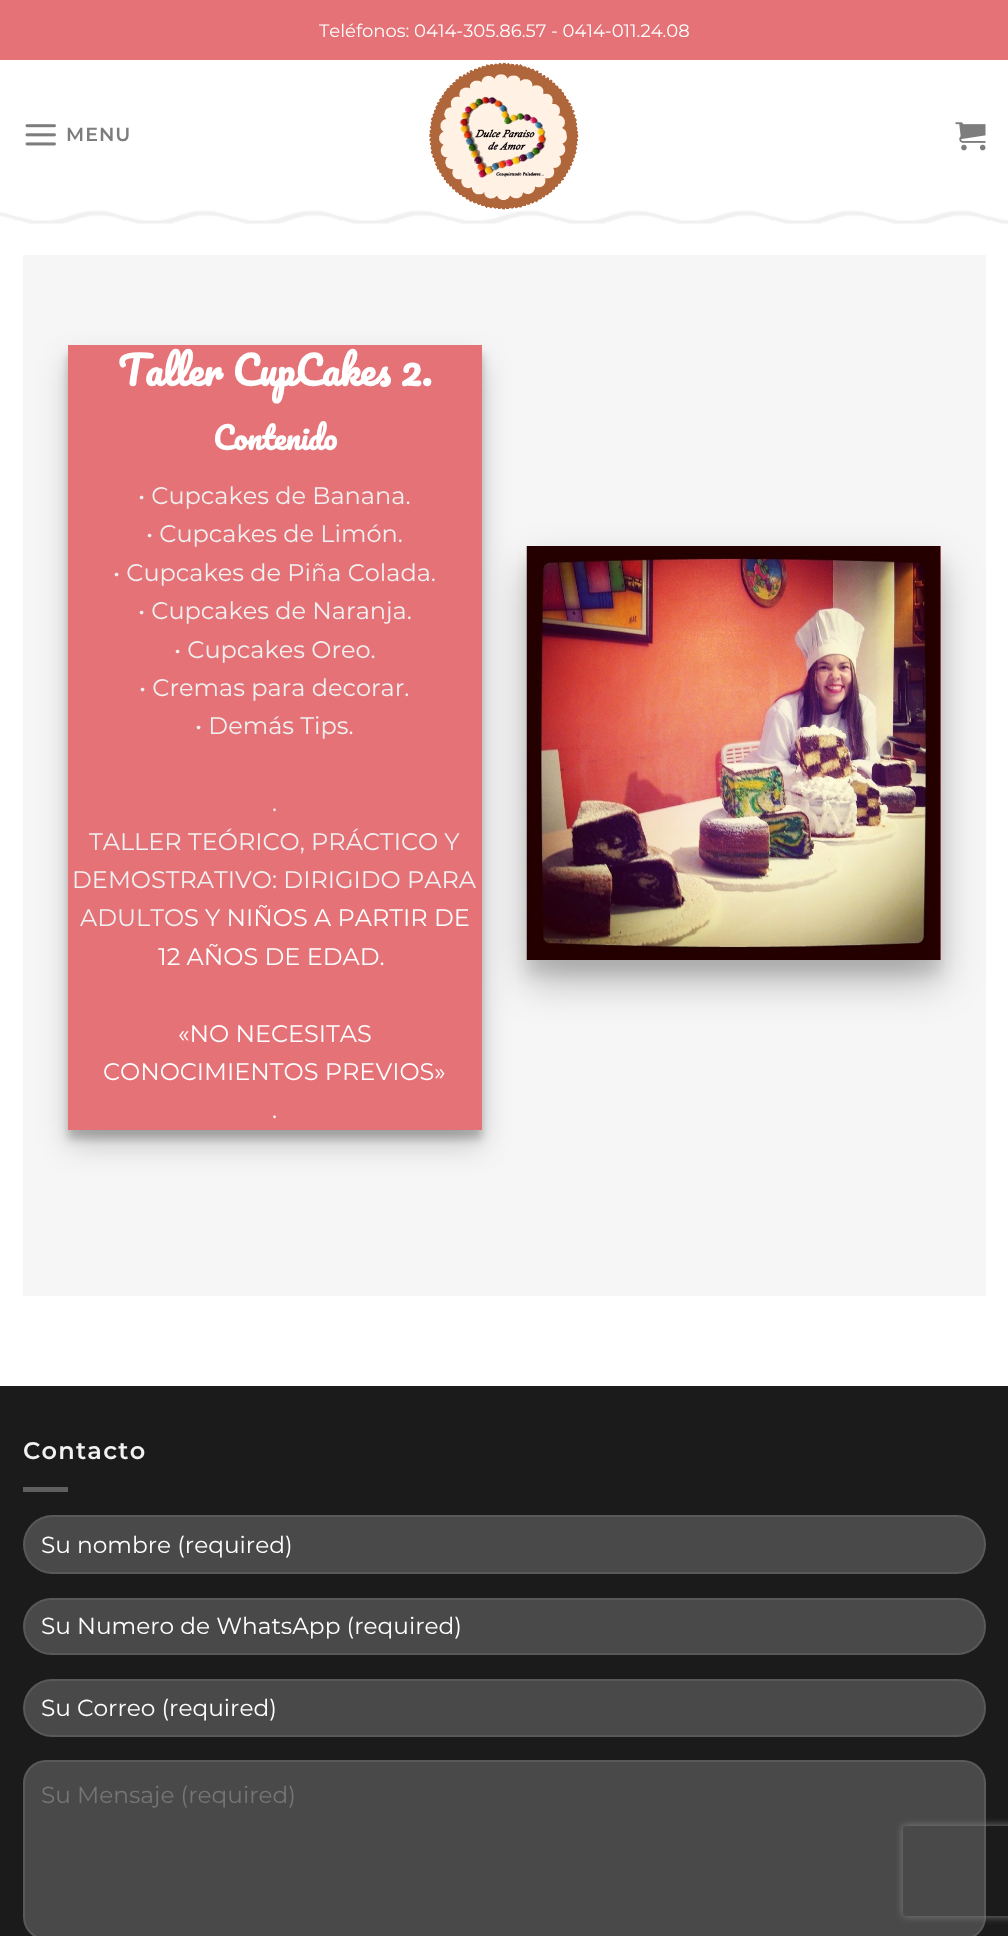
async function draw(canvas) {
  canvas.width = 1008;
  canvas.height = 1936;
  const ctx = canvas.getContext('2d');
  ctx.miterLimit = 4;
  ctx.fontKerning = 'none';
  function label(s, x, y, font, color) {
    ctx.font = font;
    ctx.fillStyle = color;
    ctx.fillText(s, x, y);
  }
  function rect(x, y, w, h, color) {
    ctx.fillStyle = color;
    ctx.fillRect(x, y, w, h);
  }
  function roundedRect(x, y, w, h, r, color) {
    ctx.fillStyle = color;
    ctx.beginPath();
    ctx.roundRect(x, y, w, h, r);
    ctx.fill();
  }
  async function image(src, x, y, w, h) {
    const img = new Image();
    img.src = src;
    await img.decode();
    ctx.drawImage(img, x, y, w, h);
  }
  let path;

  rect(0, 0, 1008, 1936, '#fff');
  rect(0, 0, 1008, 60, '#e47277');
  label('Teléfonos: 0414-305.86.57 - 0414-011.24.08', 319, 37, '18px Montserrat', '#fff');
  await image('assets/img1.png', 25, 124, 31, 22);
  ctx.letterSpacing = '1px';
  label('MENU', 66, 141, '600 19px Montserrat', '#7d7d7d');
  await image('assets/img2.png', 429, 62, 150, 148);
  await image('assets/img3.png', 955, 122, 31, 29);
  await image('assets/img4.png', 0, 210, 1008, 14);
  rect(23, 255, 963, 1041, '#f6f6f6');
  ctx.fillStyle = '#00000038';
  ctx.filter = 'blur(4.5px)';
  ctx.beginPath();
  ctx.rect(68, 354, 414, 785);
  ctx.fill();
  ctx.filter = 'none';
  ctx.fillStyle = '#00000030';
  ctx.filter = 'blur(15px)';
  ctx.beginPath();
  ctx.rect(68, 360, 414, 785);
  ctx.fill();
  ctx.filter = 'none';
  rect(68, 345, 414, 785, '#e47277');
  ctx.letterSpacing = '0px';
  label('Taller CupCakes 2.', 118, 386, 'bold 38.5px Pacifico', '#fff');
  label('Contenido', 213, 450, 'bold 30px Pacifico', '#fff');
  label('• Cupcakes de Banana.', 138, 504, '24px Montserrat', '#f1f1f1');
  label('• Cupcakes de Limón.', 146, 542, '24px Montserrat', '#f1f1f1');
  label('• Cupcakes de Piña Colada.', 113, 581, '24px Montserrat', '#f1f1f1');
  label('• Cupcakes de Naranja.', 138, 619, '24px Montserrat', '#f1f1f1');
  label('• Cupcakes Oreo.', 174, 658, '24px Montserrat', '#f1f1f1');
  label('• Cremas para decorar.', 139, 696, '24px Montserrat', '#f1f1f1');
  label('• Demás Tips.', 195, 734, '24px Montserrat', '#f1f1f1');
  label('.', 272, 811, '24px Montserrat', '#f1f1f1');
  label('TALLER TEÓRICO, PRÁCTICO Y', 89, 850, '24px Montserrat', '#f1f1f1');
  label('DEMOSTRATIVO: DIRIGIDO PARA', 72, 888, '24px Montserrat', '#f1f1f1');
  label('ADULTO', 80, 926, '24px Montserrat', '#f1f1f1');
  label('S Y NIÑOS A PARTIR DE', 184, 926, '24px Montserrat', '#fff');
  label('12 AÑOS DE EDAD.', 158, 965, '24px Montserrat', '#fff');
  label('«NO NECESITAS', 178, 1042, '24px Montserrat', '#fff');
  label('CONOCIMIENTOS PREVIOS»', 103, 1080, '24px Montserrat', '#fff');
  label('.', 272, 1118, '24px Montserrat', '#fff');
  rect(940, 546, 1, 414, '#e47277');
  ctx.fillStyle = '#0000001a';
  ctx.filter = 'blur(7.5px)';
  ctx.beginPath();
  ctx.rect(527, 561, 414, 414);
  ctx.fill();
  ctx.filter = 'none';
  ctx.fillStyle = '#00000040';
  ctx.filter = 'blur(21px)';
  ctx.beginPath();
  ctx.rect(527, 567, 414, 414);
  ctx.fill();
  ctx.filter = 'none';
  await image('assets/img5.png', 526, 546, 415, 414);
  rect(0, 1386, 1008, 550, '#1b1b1b');
  ctx.letterSpacing = '1.25px';
  label('Contacto', 23, 1459, '600 24px Montserrat', '#f1f1f1');
  rect(23, 1487, 45, 5, '#5f5f5f');
  roundedRect(23, 1515, 963, 59, 29.5, '#494949');
  ctx.beginPath();
  ctx.roundRect(24, 1516, 961, 57, 28.5);
  ctx.strokeStyle = '#ffffff17';
  ctx.lineWidth = 2;
  ctx.stroke();
  ctx.letterSpacing = '0px';
  label('Su nombre (required)', 41, 1553, '23.25px Montserrat', '#fff');
  roundedRect(23, 1598, 963, 57, 28.5, '#494949');
  ctx.beginPath();
  ctx.roundRect(24, 1599, 961, 55, 27.5);
  ctx.stroke();
  label('Su Numero de WhatsApp (required)', 41, 1634, '23.25px Montserrat', '#fff');
  roundedRect(23, 1679, 963, 58, 29, '#494949');
  ctx.beginPath();
  ctx.roundRect(24, 1680, 961, 56, 28);
  ctx.stroke();
  label('Su Correo (required)', 41, 1716, '23.25px Montserrat', '#fff');
  roundedRect(23, 1760, 963, 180, 23, '#494949');
  ctx.beginPath();
  ctx.roundRect(24, 1761, 961, 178, 22);
  ctx.stroke();
  label('Su Mensaje (required)', 41, 1803, '23.25px Montserrat', '#757575');
  ctx.save();
  path = new Path2D('M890 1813H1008V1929H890ZM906 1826H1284C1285.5 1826 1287 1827.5 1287 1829V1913C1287 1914.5 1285.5 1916 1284 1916H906C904.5 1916 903 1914.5 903 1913V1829C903 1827.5 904.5 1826 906 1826Z');
  ctx.clip(path, 'evenodd');
  ctx.fillStyle = '#808080';
  ctx.filter = 'blur(4px)';
  ctx.beginPath();
  ctx.roundRect(903, 1826, 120, 90, 3);
  ctx.fill();
  ctx.filter = 'none';
  ctx.restore();
}

draw(document.querySelector('canvas'));
